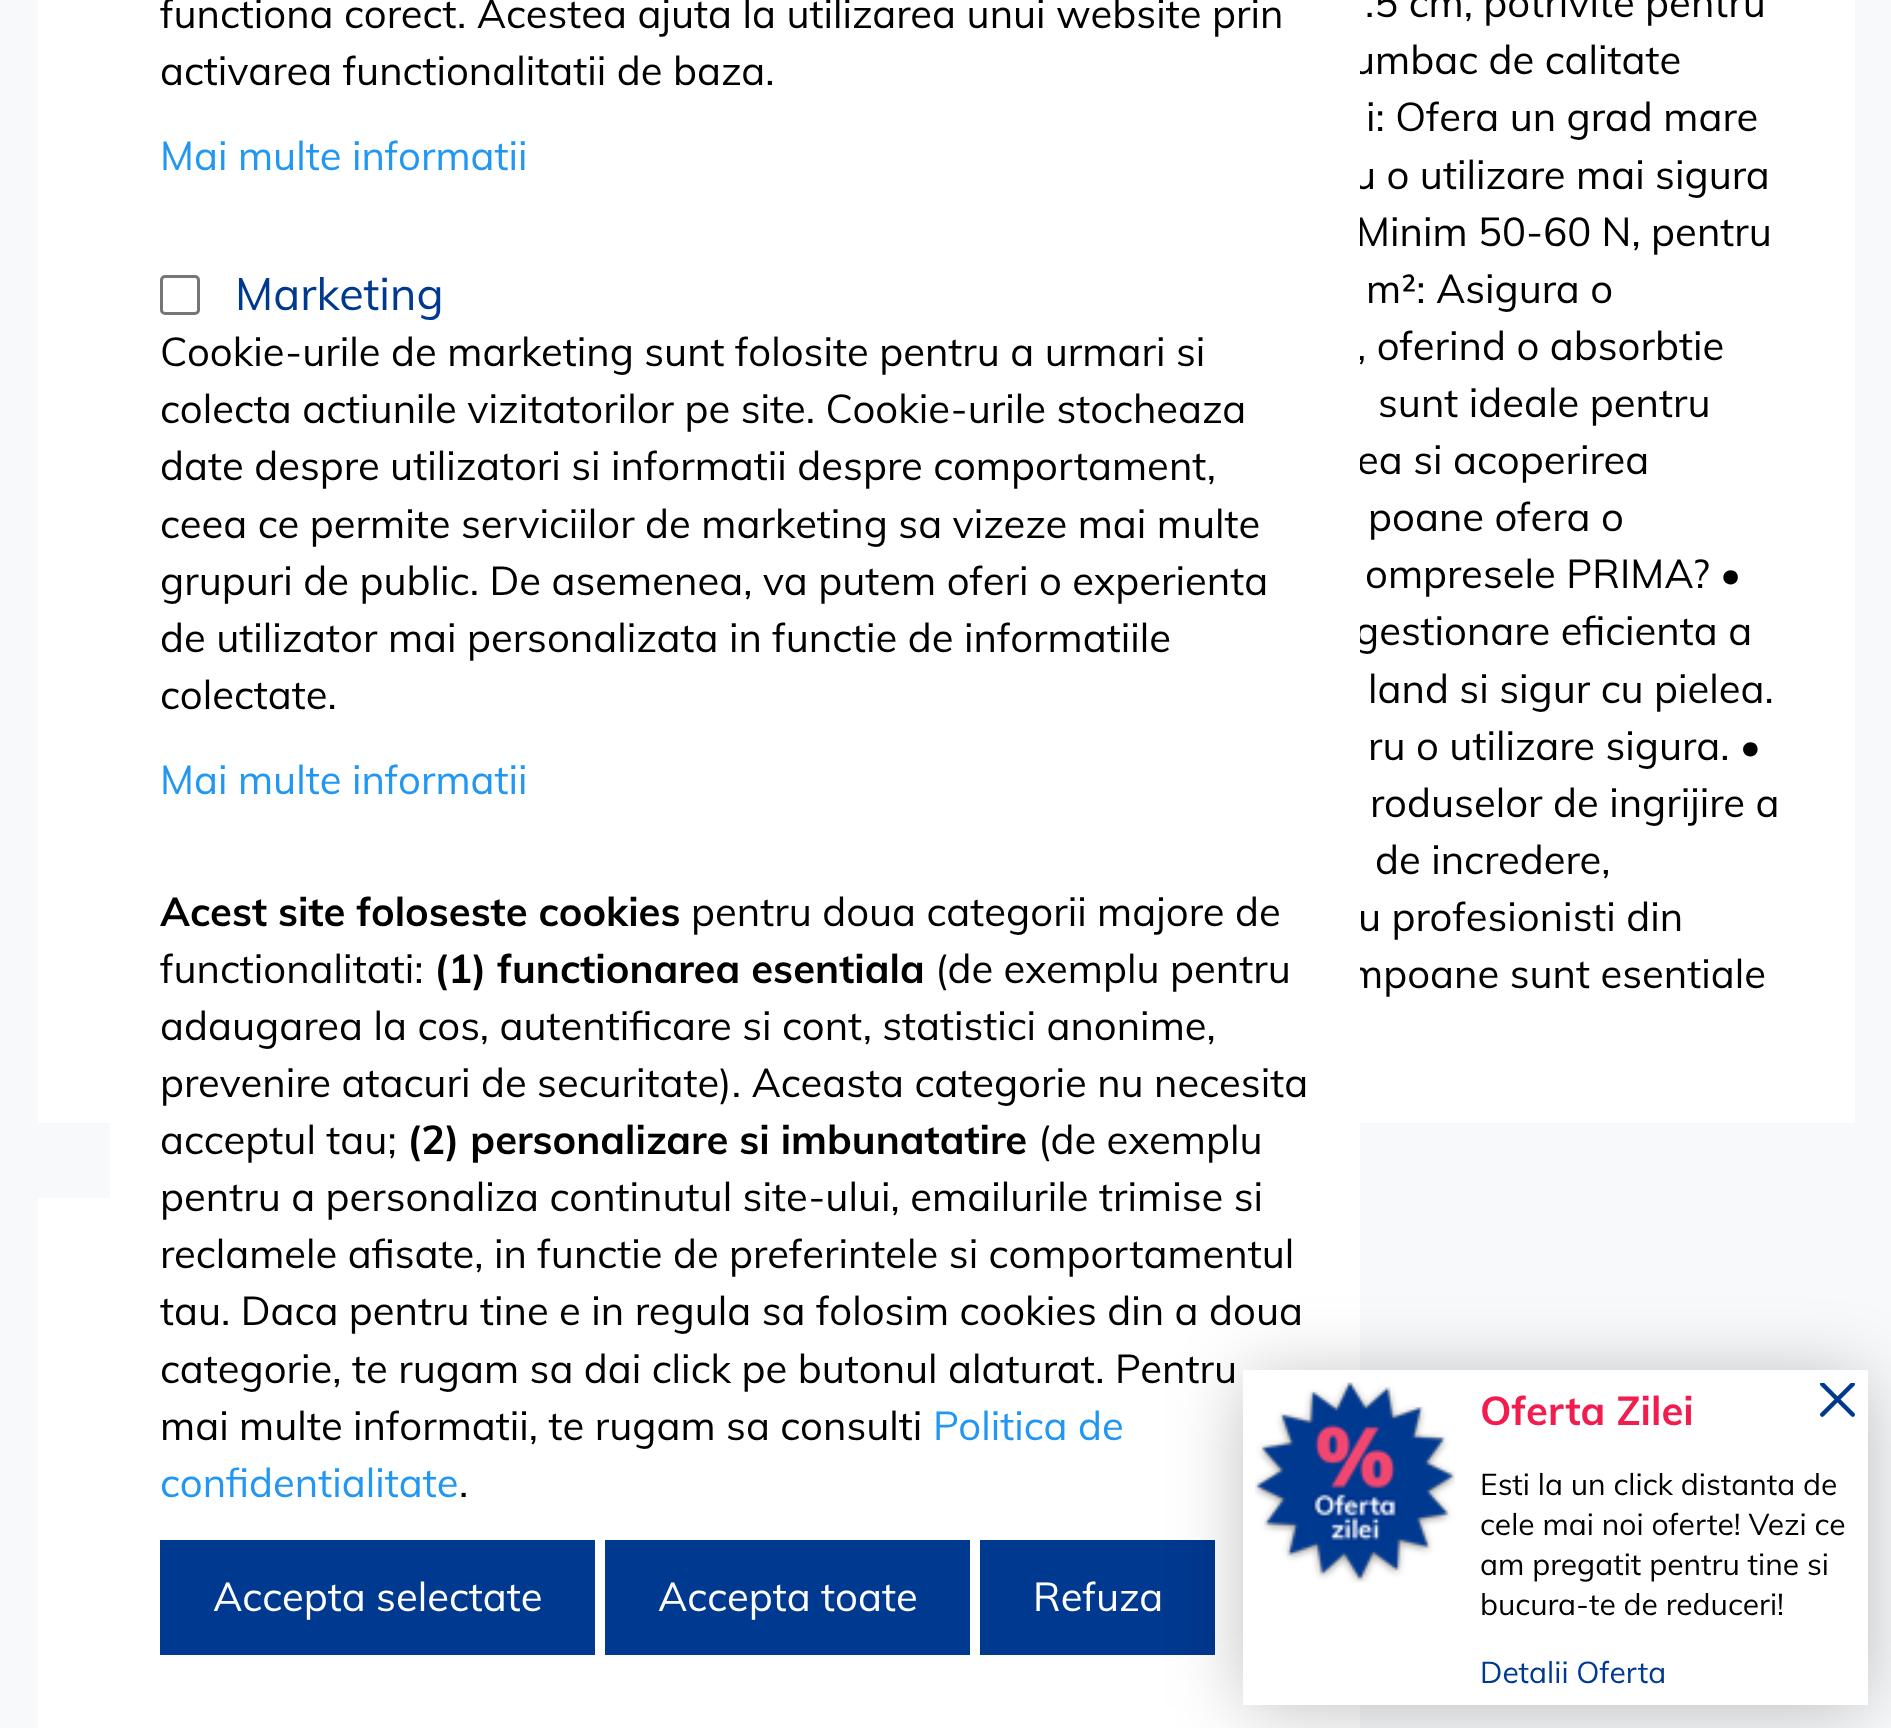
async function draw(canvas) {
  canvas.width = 1891;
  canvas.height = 1728;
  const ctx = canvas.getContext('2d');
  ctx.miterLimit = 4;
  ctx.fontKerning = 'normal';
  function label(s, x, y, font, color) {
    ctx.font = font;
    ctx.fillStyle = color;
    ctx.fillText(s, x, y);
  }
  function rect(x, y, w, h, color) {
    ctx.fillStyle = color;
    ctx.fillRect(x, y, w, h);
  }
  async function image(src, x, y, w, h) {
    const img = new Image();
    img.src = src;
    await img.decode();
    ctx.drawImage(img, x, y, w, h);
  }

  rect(0, 0, 1891, 1728, '#f8f9fb');
  rect(38, 0, 1817, 1123, '#fff');
  label('umbac de calitate', 1352, 74, '40px Muli', '#000');
  label('u o utilizare mai sigura', 1353, 189, '40px Muli', '#000');
  label('Minim 50-60 N, pentru', 1356, 246, '40px Muli', '#000');
  label(', oferind o absorbtie', 1357, 360, '40px Muli', '#000');
  label('ea si acoperirea', 1357, 474, '40px Muli', '#000');
  label('gestionare eficienta a', 1355, 645, '40px Muli', '#000');
  label('mpoane sunt esentiale', 1348, 988, '40px Muli', '#000');
  rect(110, 53, 1250, 1675, '#fff');
  label('functiona corect. Acestea ajuta la utilizarea unui website prin', 160, 28, '40px Muli', '#000');
  label('activarea functionalitatii de baza.', 160, 85, '40px Muli', '#000');
  label('Mai multe informatii', 160, 170, '40px Muli', '#2196f3');
  ctx.beginPath();
  ctx.roundRect(161.5, 276.5, 37, 37, 3.5);
  ctx.strokeStyle = '#767676';
  ctx.lineWidth = 3;
  ctx.stroke();
  label('Marketing', 235, 310, '45px Muli', '#003990');
  label('Cookie-urile de marketing sunt folosite pentru a urmari si', 160, 366, '40px Muli', '#000');
  label('colecta actiunile vizitatorilor pe site. Cookie-urile stocheaza', 160, 423, '40px Muli', '#000');
  label('date despre utilizatori si informatii despre comportament,', 160, 480, '40px Muli', '#000');
  label('ceea ce permite serviciilor de marketing sa vizeze mai multe', 160, 538, '40px Muli', '#000');
  label('grupuri de public. De asemenea, va putem oferi o experienta', 160, 595, '40px Muli', '#000');
  label('de utilizator mai personalizata in functie de informatiile', 160, 652, '40px Muli', '#000');
  label('colectate.', 160, 709, '40px Muli', '#000');
  label('Mai multe informatii', 160, 794, '40px Muli', '#2196f3');
  label('Acest site foloseste cookies', 160, 926, 'bold 40px Muli', '#000');
  label('pentru doua categorii majore de', 691, 926, '40px Muli', '#000');
  label('functionalitati:', 160, 983, '40px Muli', '#000');
  label('(1) functionarea esentiala', 434, 983, 'bold 40px Muli', '#000');
  label('(de exemplu pentru', 935, 983, '40px Muli', '#000');
  label('adaugarea la cos, autentificare si cont, statistici anonime,', 160, 1040, '40px Muli', '#000');
  label('prevenire atacuri de securitate). Aceasta categorie nu necesita', 160, 1097, '40px Muli', '#000');
  label('acceptul tau;', 160, 1154, '40px Muli', '#000');
  label('(2) personalizare si imbunatatire', 407, 1154, 'bold 40px Muli', '#000');
  label('(de exemplu', 1038, 1154, '40px Muli', '#000');
  label('pentru a personaliza continutul site-ului, emailurile trimise si', 160, 1211, '40px Muli', '#000');
  label('reclamele afisate, in functie de preferintele si comportamentul', 160, 1268, '40px Muli', '#000');
  label('tau. Daca pentru tine e in regula sa folosim cookies din a doua', 160, 1325, '40px Muli', '#000');
  label('categorie, te rugam sa dai click pe butonul alaturat. Pentru', 160, 1383, '40px Muli', '#000');
  label('mai multe informatii, te rugam sa consulti', 160, 1440, '40px Muli', '#000');
  label('Politica de', 933, 1440, '40px Muli', '#2196f3');
  label('confidentialitate', 160, 1497, '40px Muli', '#2196f3');
  label('.', 459, 1497, '40px Muli', '#000');
  rect(160, 1540, 435, 115, '#003990');
  label('Accepta selectate', 213, 1611, '40px Muli', '#fff');
  rect(605, 1540, 365, 115, '#003990');
  label('Accepta toate', 658, 1611, '40px Muli', '#fff');
  rect(980, 1540, 235, 115, '#003990');
  label('Refuza', 1033, 1611, '40px Muli', '#fff');
  label('.5 cm, potrivite pentru', 1365, 17, '40px Muli', '#000');
  label('i: Ofera un grad mare', 1366, 131, '40px Muli', '#000');
  label('m²: Asigura o', 1366, 303, '40px Muli', '#000');
  label('sunt ideale pentru', 1378, 417, '40px Muli', '#000');
  label('poane ofera o', 1368, 531, '40px Muli', '#000');
  label('ompresele PRIMA? •', 1365, 588, '40px Muli', '#000');
  label('land si sigur cu pielea.', 1368, 703, '40px Muli', '#000');
  label('ru o utilizare sigura. •', 1368, 760, '40px Muli', '#000');
  label('roduselor de ingrijire a', 1370, 817, '40px Muli', '#000');
  label('de incredere,', 1375, 874, '40px Muli', '#000');
  label('u profesionisti din', 1358, 931, '40px Muli', '#000');
  rect(38, 1198, 72, 530, '#fff');
  ctx.fillStyle = '#00000040';
  ctx.filter = 'blur(37.5px)';
  ctx.beginPath();
  ctx.rect(1245, 1378, 620, 330);
  ctx.fill();
  ctx.filter = 'none';
  rect(1243, 1370, 625, 335, '#fff');
  await image('assets/img1.png', 1820, 1383, 35, 34);
  await image('assets/img2.png', 1255, 1382, 200, 201);
  label('Oferta Zilei', 1480, 1425, 'bold 40px Muli', '#f11d4f');
  label('Esti la un click distanta de', 1480, 1495, '30px Muli', '#000');
  label('cele mai noi oferte! Vezi ce', 1480, 1535, '30px Muli', '#000');
  label('am pregatit pentru tine si', 1480, 1575, '30px Muli', '#000');
  label('bucura-te de reduceri!', 1480, 1615, '30px Muli', '#000');
  label('Detalii Oferta', 1480, 1683, '30px Muli', '#003990');
}

draw(document.querySelector('canvas'));
